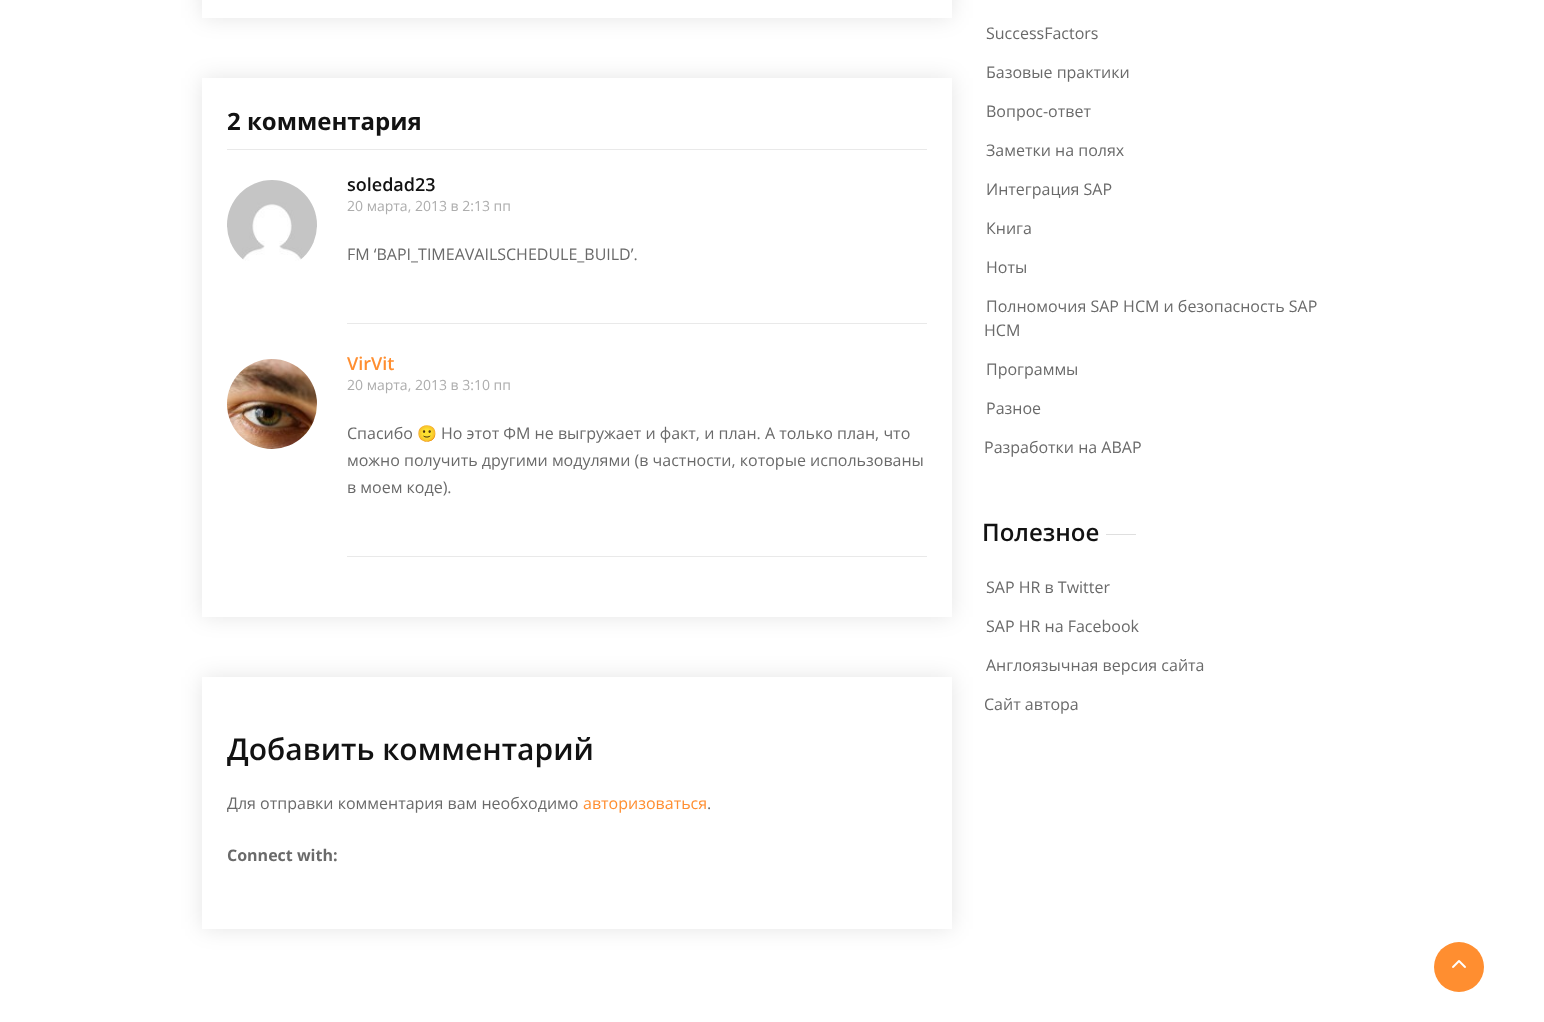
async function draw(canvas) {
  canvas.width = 1544;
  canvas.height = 1022;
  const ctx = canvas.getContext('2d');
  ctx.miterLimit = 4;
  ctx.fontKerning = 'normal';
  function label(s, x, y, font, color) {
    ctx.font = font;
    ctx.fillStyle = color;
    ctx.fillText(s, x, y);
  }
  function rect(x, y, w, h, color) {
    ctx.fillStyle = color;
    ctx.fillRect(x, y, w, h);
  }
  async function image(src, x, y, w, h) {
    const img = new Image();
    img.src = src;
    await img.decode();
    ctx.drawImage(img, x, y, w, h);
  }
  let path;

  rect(0, 0, 1544, 1022, '#fff');
  ctx.save();
  path = new Path2D('M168 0H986V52H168ZM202-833H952V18H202Z');
  ctx.clip(path, 'evenodd');
  ctx.fillStyle = '#0000001a';
  ctx.filter = 'blur(11px)';
  ctx.beginPath();
  ctx.rect(202, -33, 750, 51);
  ctx.fill();
  ctx.filter = 'none';
  ctx.restore();
  ctx.save();
  path = new Path2D('M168 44H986V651H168ZM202 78H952V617H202Z');
  ctx.clip(path, 'evenodd');
  ctx.fillStyle = '#0000001a';
  ctx.filter = 'blur(11px)';
  ctx.beginPath();
  ctx.rect(202, 78, 750, 539);
  ctx.fill();
  ctx.filter = 'none';
  ctx.restore();
  rect(227, 149, 700, 1, '#e9e9e9');
  label('2 комментария', 227, 130, 'bold 24px Open Sans', '#121212');
  await image('assets/img1.png', 227, 180, 90, 81);
  rect(347, 323, 580, 1, '#e9e9e9');
  label('soledad23', 347, 191, '600 18px Open Sans', '#121212');
  label('20 марта, 2013 в 2:13 пп', 347, 211, '14px Open Sans', '#adadad');
  label('FM ‘BAPI_TIMEAVAILSCHEDULE_BUILD’.', 347, 260, '16px Open Sans', '#6a6a6a');
  await image('assets/img2.png', 227, 359, 90, 90);
  rect(347, 556, 580, 1, '#e9e9e9');
  label('VirVit', 347, 370, '600 18px Open Sans', '#ff8e30');
  label('20 марта, 2013 в 3:10 пп', 347, 390, '14px Open Sans', '#adadad');
  label('Спасибо', 347, 439, '16px Open Sans', '#6a6a6a');
  label('🙂', 417, 439, '16px Noto Color Emoji', '#6a6a6a');
  label('Но этот ФМ не выгружает и факт, и план. А только план, что', 441, 439, '16px Open Sans', '#6a6a6a');
  label('можно получить другими модулями (в частности, которые использованы', 347, 466, '16px Open Sans', '#6a6a6a');
  label('в моем коде).', 347, 493, '16px Open Sans', '#6a6a6a');
  ctx.save();
  path = new Path2D('M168 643H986V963H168ZM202 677H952V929H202Z');
  ctx.clip(path, 'evenodd');
  ctx.fillStyle = '#0000001a';
  ctx.filter = 'blur(11px)';
  ctx.beginPath();
  ctx.rect(202, 677, 750, 252);
  ctx.fill();
  ctx.filter = 'none';
  ctx.restore();
  label('Добавить комментарий', 227, 760, '600 30px Open Sans', '#121212');
  label('Для отправки комментария вам необходимо', 227, 809, '16px Open Sans', '#6a6a6a');
  label('авторизоваться', 583, 809, '16px Open Sans', '#ff8e30');
  label('.', 707, 809, '16px Open Sans', '#6a6a6a');
  label('Connect with:', 227, 861, 'bold 16px Open Sans', '#6a6a6a');
  label('SuccessFactors', 986, 39, '16px Open Sans', '#6a6a6a');
  label('Базовые практики', 986, 78, '16px Open Sans', '#6a6a6a');
  label('Вопрос-ответ', 986, 117, '16px Open Sans', '#6a6a6a');
  label('Заметки на полях', 986, 156, '16px Open Sans', '#6a6a6a');
  label('Интеграция SAP', 986, 195, '16px Open Sans', '#6a6a6a');
  label('Книга', 986, 234, '16px Open Sans', '#6a6a6a');
  label('Ноты', 986, 273, '16px Open Sans', '#6a6a6a');
  label('Полномочия SAP HCM и безопасность SAP', 986, 312, '16px Open Sans', '#6a6a6a');
  label('HCM', 984, 336, '16px Open Sans', '#6a6a6a');
  label('Программы', 986, 375, '16px Open Sans', '#6a6a6a');
  label('Разное', 986, 414, '16px Open Sans', '#6a6a6a');
  label('Разработки на ABAP', 984, 453, '16px Open Sans', '#6a6a6a');
  label('Полезное', 982, 541, '600 24px Open Sans', '#121212');
  rect(1106, 534, 30, 1, '#dfdfdf');
  label('SAP HR в Twitter', 986, 593, '16px Open Sans', '#6a6a6a');
  label('SAP HR на Facebook', 986, 632, '16px Open Sans', '#6a6a6a');
  label('Англоязычная версия сайта', 986, 671, '16px Open Sans', '#6a6a6a');
  label('Сайт автора', 984, 710, '16px Open Sans', '#6a6a6a');
  ctx.fillStyle = '#ff8e30';
  ctx.beginPath();
  ctx.arc(1459, 967, 25, 0, 2 * Math.PI);
  ctx.fill();
  await image('assets/img3.png', 1452, 960, 14, 8);
}

draw(document.querySelector('canvas'));
